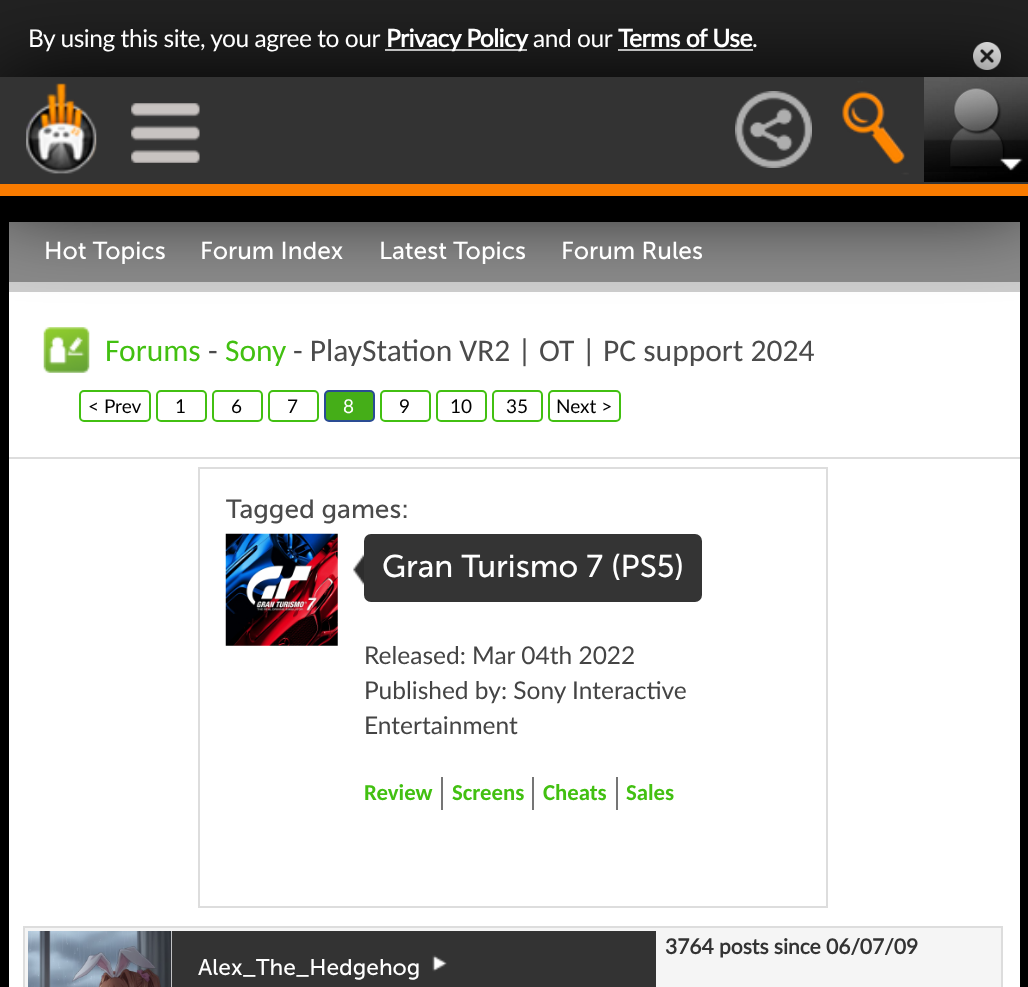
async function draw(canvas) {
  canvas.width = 1028;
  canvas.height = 987;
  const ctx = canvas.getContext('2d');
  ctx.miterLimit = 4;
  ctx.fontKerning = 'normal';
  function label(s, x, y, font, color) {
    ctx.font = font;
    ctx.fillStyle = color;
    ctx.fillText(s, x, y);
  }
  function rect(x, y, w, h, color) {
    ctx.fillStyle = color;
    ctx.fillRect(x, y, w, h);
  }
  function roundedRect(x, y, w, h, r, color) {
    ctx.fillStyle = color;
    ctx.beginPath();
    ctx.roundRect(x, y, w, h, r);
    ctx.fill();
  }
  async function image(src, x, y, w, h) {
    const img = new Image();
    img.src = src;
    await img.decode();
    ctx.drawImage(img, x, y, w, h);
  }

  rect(0, 0, 1028, 987, '#000');
  rect(0, 0, 1028, 77, '#222');
  rect(385, 49, 142, 2, '#fff');
  rect(618, 49, 135, 2, '#fff');
  await image('assets/img7.png', 973, 42, 28, 28);
  rect(9, 292, 1011, 695, '#fff');
  rect(9, 222, 1011, 60, '#8a8a8a');
  rect(9, 282, 1011, 10, '#cdcdcd');
  await image('assets/img8.png', 43, 327, 47, 46);
  ctx.fillStyle = '#000';
  ctx.filter = 'blur(44px)';
  ctx.beginPath();
  ctx.rect(0, 79, 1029, 119);
  ctx.fill();
  ctx.filter = 'none';
  rect(0, 77, 1028, 107, '#333');
  await image('assets/img1.png', 26, 83, 71, 91);
  await image('assets/img2.png', 131, 103, 69, 60);
  await image('assets/img3.png', 735, 91, 77, 77);
  await image('assets/img4.png', 842, 81, 67, 94);
  await image('assets/img5.png', 924, 77, 104, 105);
  await image('assets/img6.png', 924, 139, 104, 33);
  rect(0, 184, 1028, 12, '#f97b00');
  ctx.letterSpacing = '-0.45px';
  label('By using this site, you agree to our', 28, 47, '24.5px Lato', '#fff');
  label('Privacy Policy', 386, 47, 'bold 24.5px Lato', '#fff');
  label('and our', 533, 47, '24.5px Lato', '#fff');
  label('Terms of Use', 618, 47, 'bold 24.5px Lato', '#fff');
  label('.', 752, 47, '24.5px Lato', '#fff');
  ctx.letterSpacing = '0px';
  label('Hot Topics', 44, 259, '24.5px Museo Sans', '#fff');
  label('Forum Index', 200, 259, '24.5px Museo Sans', '#fff');
  label('Latest Topics', 379, 259, '24.5px Museo Sans', '#fff');
  label('Forum Rules', 561, 259, '24.5px Museo Sans', '#fff');
  label('Forums', 105, 361, '31.5px Carlito', '#42c011');
  label('-', 208, 361, '31.5px Carlito', '#4b4b4b');
  label('Sony', 225, 361, '31.5px Carlito', '#42c011');
  label('- PlayStation VR2 | OT | PC support 2024', 293, 361, '31.5px Carlito', '#4b4b4b');
  ctx.beginPath();
  ctx.roundRect(80, 391, 70, 30, 4);
  ctx.strokeStyle = '#42c011';
  ctx.lineWidth = 2;
  ctx.stroke();
  label('< Prev', 88, 413, '19px Lato', '#000');
  ctx.beginPath();
  ctx.roundRect(157, 391, 49, 30, 4);
  ctx.stroke();
  label('1', 175, 413, '19px Lato', '#000');
  ctx.beginPath();
  ctx.roundRect(213, 391, 49, 30, 4);
  ctx.stroke();
  label('6', 231, 413, '19px Lato', '#000');
  ctx.beginPath();
  ctx.roundRect(269, 391, 49, 30, 4);
  ctx.stroke();
  label('7', 287, 413, '19px Lato', '#000');
  ctx.fillStyle = '#45ae18';
  ctx.beginPath();
  ctx.roundRect(325, 391, 49, 30, 4);
  ctx.fill();
  ctx.strokeStyle = '#2a4c93';
  ctx.stroke();
  label('8', 343, 413, '19px Lato', '#fff');
  ctx.beginPath();
  ctx.roundRect(381, 391, 49, 30, 4);
  ctx.strokeStyle = '#42c011';
  ctx.stroke();
  label('9', 399, 413, '19px Lato', '#000');
  ctx.beginPath();
  ctx.roundRect(437, 391, 49, 30, 4);
  ctx.stroke();
  label('10', 450, 413, '19px Lato', '#000');
  ctx.beginPath();
  ctx.roundRect(493, 391, 49, 30, 4);
  ctx.stroke();
  label('35', 506, 413, '19px Lato', '#000');
  ctx.beginPath();
  ctx.roundRect(549, 391, 71, 30, 4);
  ctx.stroke();
  label('Next >', 556, 413, '19px Lato', '#000');
  rect(9, 457, 1011, 2, '#ddd');
  ctx.strokeStyle = '#ddd';
  ctx.strokeRect(199, 468, 628, 439);
  label('Tagged games:', 226, 518, '26.25px Museo Sans', '#4b4b4b');
  await image('assets/img9.png', 225, 533, 113, 113);
  roundedRect(364, 534, 338, 68, 7, '#343434');
  await image('assets/img10.png', 353, 554, 11, 31);
  label('Gran Turismo 7 (PS5)', 382, 577, '31.5px Museo Sans', '#fff');
  label('Released: Mar 04th 2022', 364, 664, '24.5px Lato', '#444');
  label('Published by: Sony Interactive', 364, 699, '24.5px Lato', '#444');
  label('Entertainment', 364, 734, '24.5px Lato', '#444');
  rect(441, 777, 2, 33, '#757575');
  label('Review', 364, 800, 'bold 22.75px Carlito', '#42c011');
  rect(532, 777, 2, 33, '#757575');
  label('Screens', 452, 800, 'bold 22.75px Carlito', '#42c011');
  rect(616, 777, 2, 33, '#757575');
  label('Cheats', 543, 800, 'bold 22.75px Carlito', '#42c011');
  label('Sales', 626, 800, 'bold 22.75px Carlito', '#42c011');
  ctx.fillStyle = '#f5f5f5';
  ctx.beginPath();
  ctx.rect(24, 927, 978, 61);
  ctx.fill();
  ctx.stroke();
  await image('assets/img11.png', 28, 931, 144, 56);
  label('3764 posts since 06/07/09', 665, 954, 'bold 21px Lato', '#333');
  rect(172, 931, 484, 56, '#333');
  await image('assets/img12.png', 432, 955, 15, 17);
  label('Alex_The_Hedgehog', 198, 975, '22.75px Museo Sans', '#fff');
}

draw(document.querySelector('canvas'));
